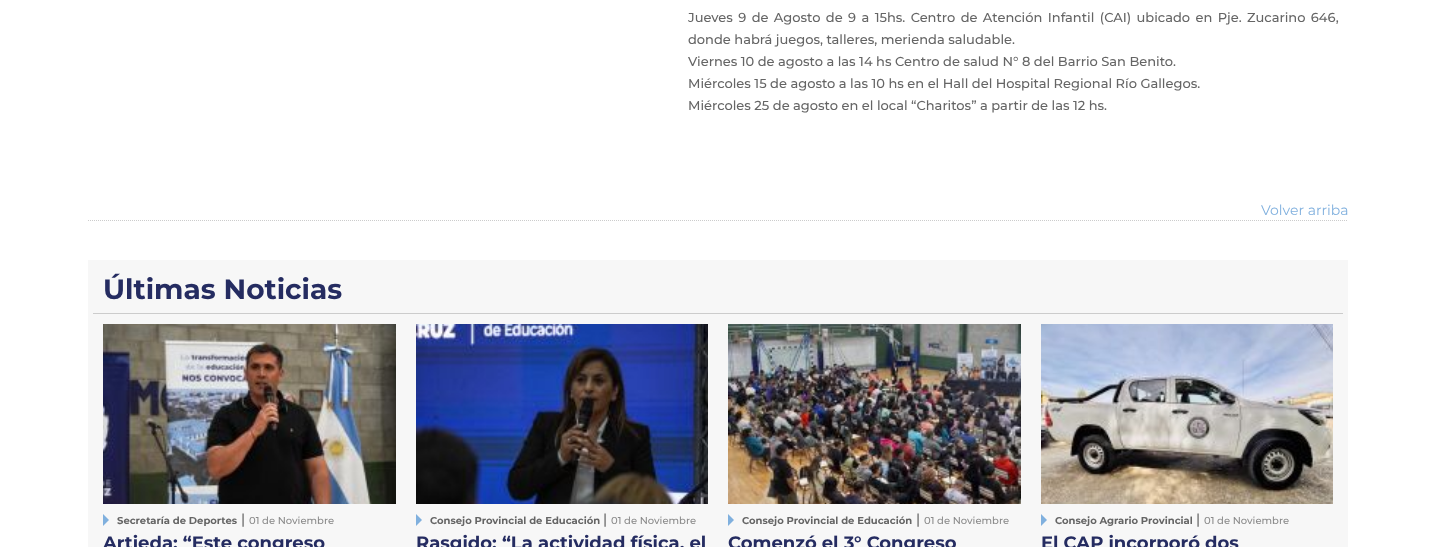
async function draw(canvas) {
  canvas.width = 1436;
  canvas.height = 547;
  const ctx = canvas.getContext('2d');
  ctx.miterLimit = 4;
  ctx.fontKerning = 'normal';
  function label(s, x, y, font, color) {
    ctx.font = font;
    ctx.fillStyle = color;
    ctx.fillText(s, x, y);
  }
  function rect(x, y, w, h, color) {
    ctx.fillStyle = color;
    ctx.fillRect(x, y, w, h);
  }
  async function image(src, x, y, w, h) {
    const img = new Image();
    img.src = src;
    await img.decode();
    ctx.drawImage(img, x, y, w, h);
  }
  let path;

  rect(0, 0, 1436, 547, '#fff');
  path = new Path2D('M88 220.5H1348');
  ctx.strokeStyle = '#ccc';
  ctx.setLineDash([1, 1]);
  ctx.stroke(path);
  ctx.wordSpacing = '1.9px';
  label('Jueves 9 de Agosto de 9 a 15hs. Centro de Atención Infantil (CAI) ubicado en Pje. Zucarino 646,', 688, 22, '500 13px Montserrat', '#656565');
  ctx.wordSpacing = '0px';
  label('donde habrá juegos, talleres, merienda saludable.', 688, 44, '500 13px Montserrat', '#656565');
  label('Viernes 10 de agosto a las 14 hs Centro de salud N° 8 del Barrio San Benito.', 688, 66, '500 13px Montserrat', '#656565');
  label('Miércoles 15 de agosto a las 10 hs en el Hall del Hospital Regional Río Gallegos.', 688, 88, '500 13px Montserrat', '#656565');
  label('Miércoles 25 de agosto en el local “Charitos” a partir de las 12 hs.', 688, 110, '500 13px Montserrat', '#656565');
  label('Volver arriba', 1261, 215, '14px Montserrat', '#80b0de');
  rect(88, 260, 1260, 287, '#f7f7f7');
  rect(93, 313, 1250, 1, '#ccc');
  label('Últimas Noticias', 103, 299, 'bold 28px Montserrat', '#252c61');
  await image('assets/img1.png', 103, 324, 293, 180);
  ctx.fillStyle = '#80b0de';
  path = new Path2D('M103 526V514L109 520Z');
  ctx.fill(path);
  label('Secretaría de Deportes', 117, 524, 'bold 10px Montserrat', '#656565');
  label('|', 241, 524, '14px Montserrat', '#333');
  label('01 de Noviembre', 249, 524, '500 10px Montserrat', '#8a8a8a');
  label('Artieda: “Este congreso', 103, 549, 'bold 18px Montserrat', '#252c61');
  await image('assets/img2.png', 416, 324, 292, 180);
  ctx.fillStyle = '#80b0de';
  path = new Path2D('M416 526V514L422 520Z');
  ctx.fill(path);
  label('Consejo Provincial de Educación', 430, 524, 'bold 10px Montserrat', '#656565');
  label('|', 603, 524, '14px Montserrat', '#333');
  label('01 de Noviembre', 611, 524, '500 10px Montserrat', '#8a8a8a');
  label('Rasgido: “La actividad física, el', 416, 549, 'bold 18px Montserrat', '#252c61');
  await image('assets/img3.png', 728, 324, 293, 180);
  ctx.fillStyle = '#80b0de';
  path = new Path2D('M728 526V514L734 520Z');
  ctx.fill(path);
  label('Consejo Provincial de Educación', 742, 524, 'bold 10px Montserrat', '#656565');
  label('|', 916, 524, '14px Montserrat', '#333');
  label('01 de Noviembre', 924, 524, '500 10px Montserrat', '#8a8a8a');
  label('Comenzó el 3° Congreso', 728, 549, 'bold 18px Montserrat', '#252c61');
  await image('assets/img4.png', 1041, 324, 292, 180);
  ctx.fillStyle = '#80b0de';
  path = new Path2D('M1041 526V514L1047 520Z');
  ctx.fill(path);
  label('Consejo Agrario Provincial', 1055, 524, 'bold 10px Montserrat', '#656565');
  label('|', 1196, 524, '14px Montserrat', '#333');
  label('01 de Noviembre', 1204, 524, '500 10px Montserrat', '#8a8a8a');
  label('El CAP incorporó dos', 1041, 549, 'bold 18px Montserrat', '#252c61');
}

draw(document.querySelector('canvas'));
